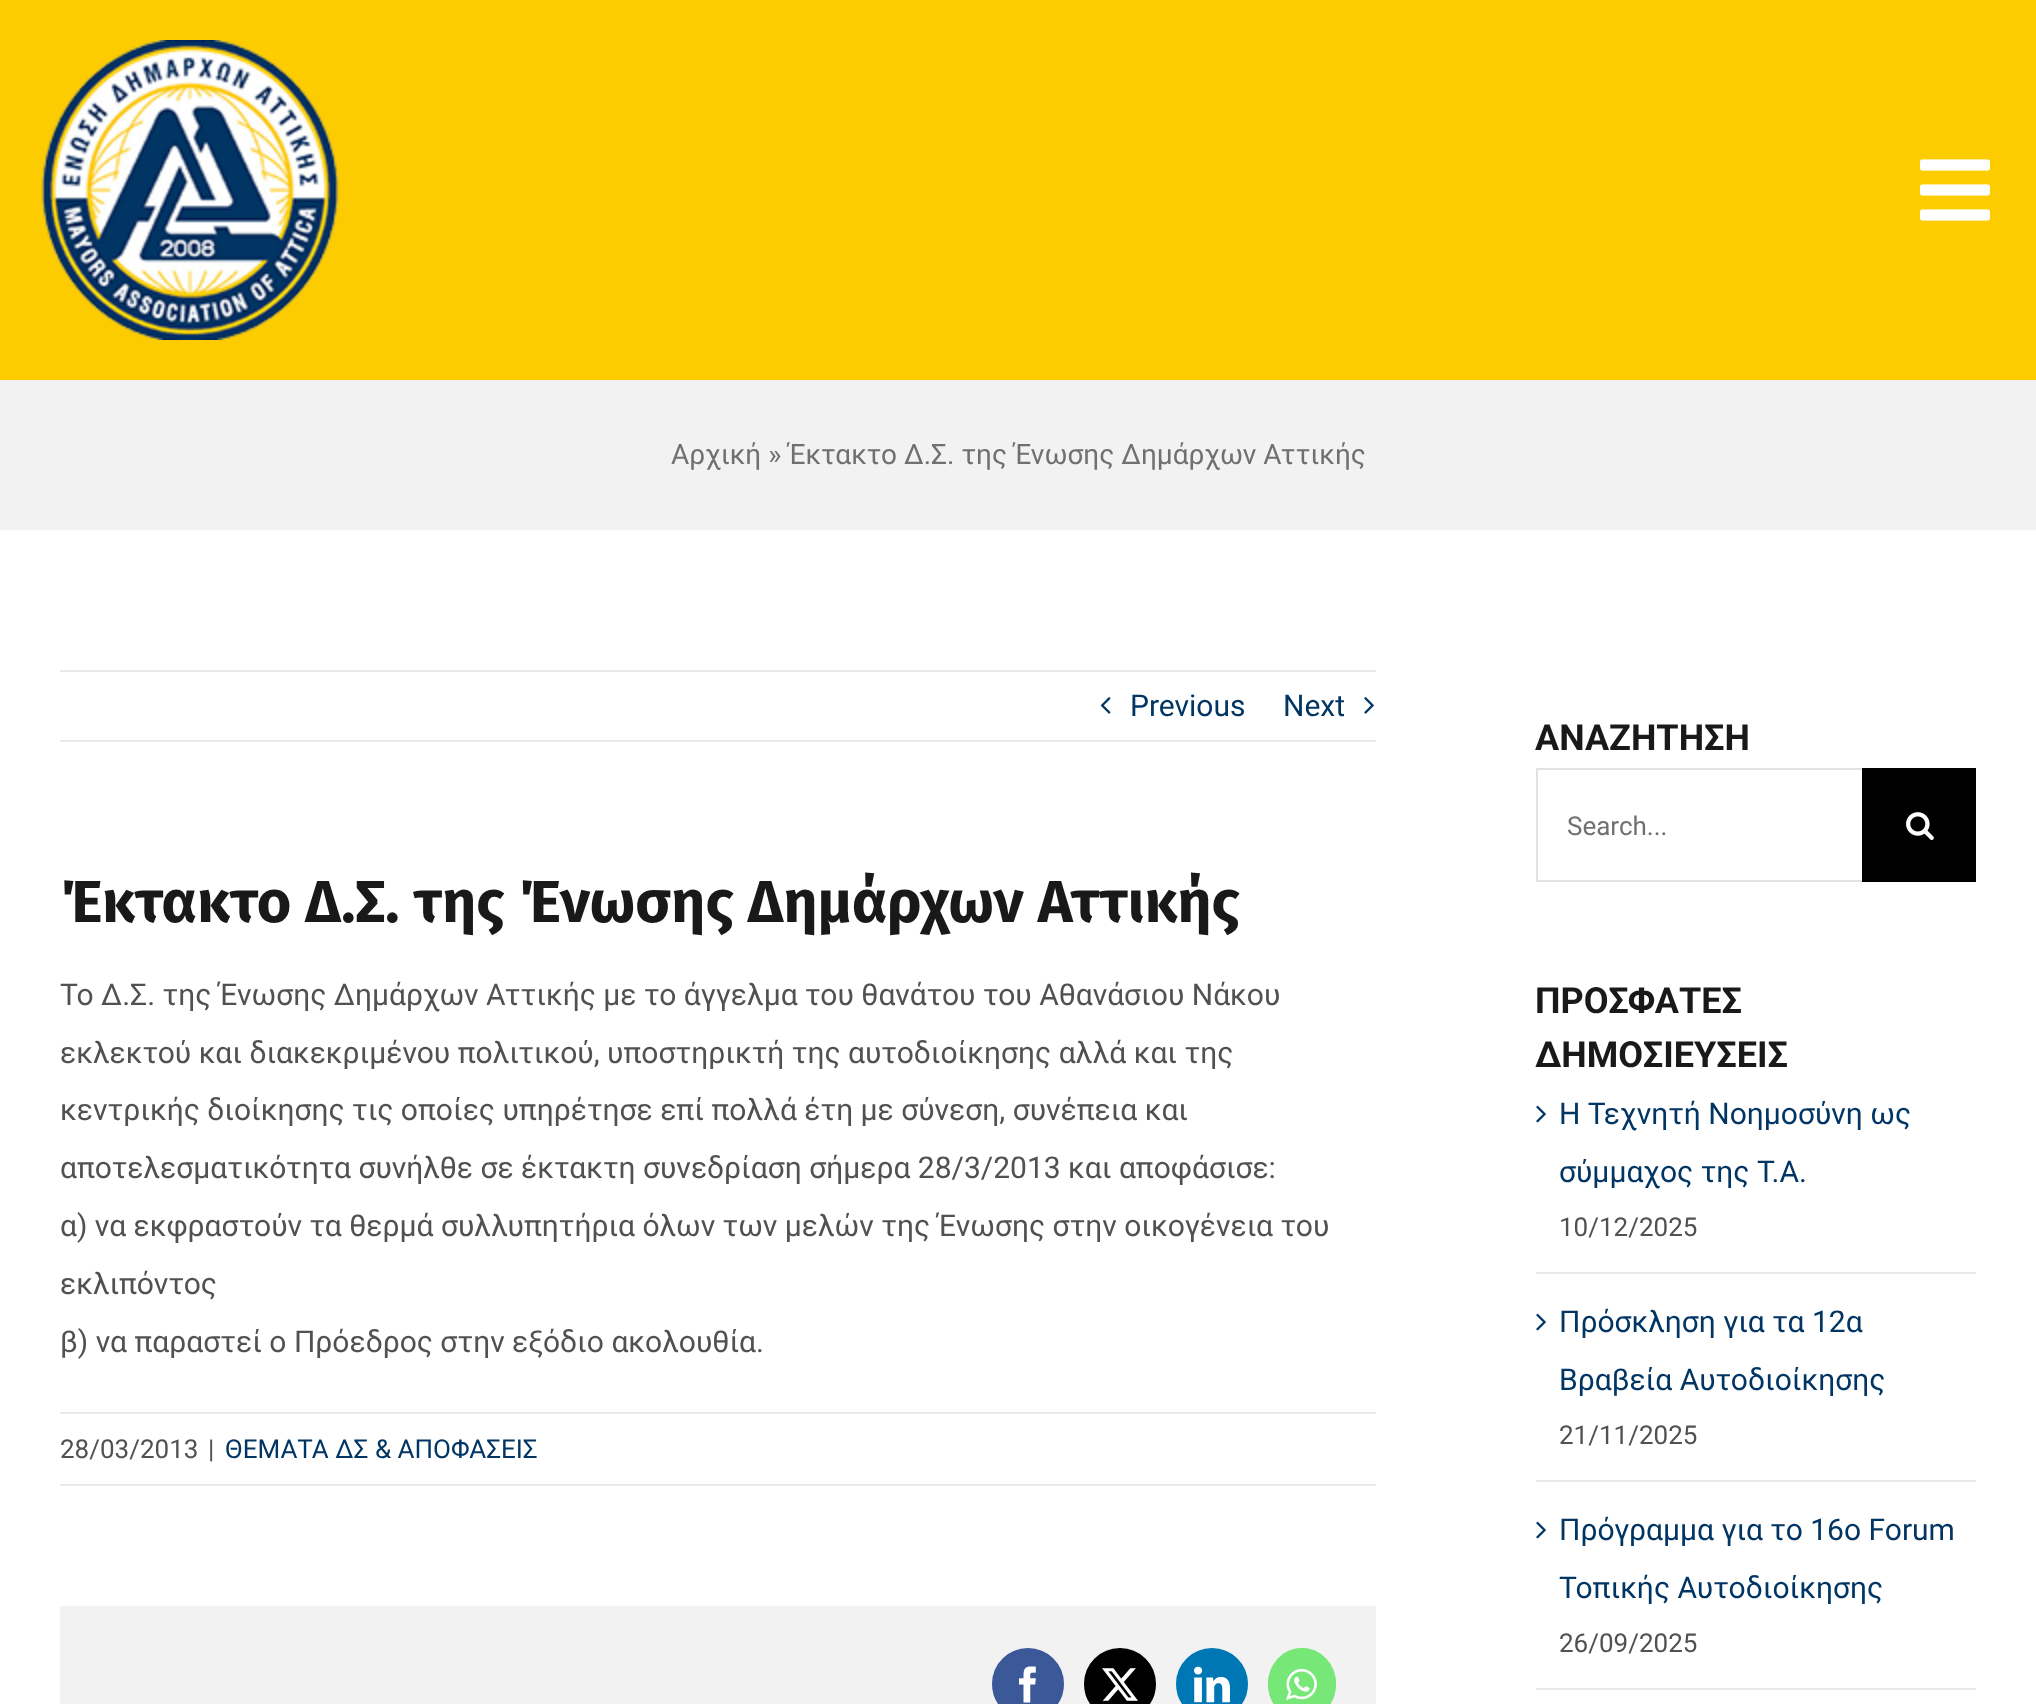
async function draw(canvas) {
  canvas.width = 2036;
  canvas.height = 1704;
  const ctx = canvas.getContext('2d');
  ctx.miterLimit = 4;
  ctx.fontKerning = 'normal';
  function label(s, x, y, font, color) {
    ctx.font = font;
    ctx.fillStyle = color;
    ctx.fillText(s, x, y);
  }
  function rect(x, y, w, h, color) {
    ctx.fillStyle = color;
    ctx.fillRect(x, y, w, h);
  }
  async function image(src, x, y, w, h) {
    const img = new Image();
    img.src = src;
    await img.decode();
    ctx.drawImage(img, x, y, w, h);
  }
  let path;

  rect(0, 0, 2036, 1704, '#fff');
  rect(0, 0, 2036, 380, '#fccc00');
  await image('assets/img1.png', 41, 40, 298, 300);
  await image('assets/img2.png', 1920, 159, 70, 62);
  rect(0, 380, 2036, 150, '#f2f2f2');
  label('Αρχική » Έκτακτο Δ.Σ. της Ένωσης Δημάρχων Αττικής', 671, 464, '28px Roboto', '#707070');
  rect(60, 670, 1316, 2, '#eaeaea');
  rect(60, 740, 1316, 2, '#eaeaea');
  await image('assets/img3.png', 1100, 697, 11, 17);
  label('Previous', 1130, 716, '30px Roboto', '#013564');
  label('Next', 1283, 716, '30px Roboto', '#013564');
  await image('assets/img4.png', 1364, 697, 10, 17);
  label('Έκτακτο Δ.Σ. της Ένωσης Δημάρχων Αττικής', 60, 922, 'bold 59.2px Fira Sans', '#191919');
  label('Το Δ.Σ. της Ένωσης Δημάρχων Αττικής με το άγγελμα του θανάτου του Αθανάσιου Νάκου', 60, 1005, '30px Roboto', '#515151');
  label('εκλεκτού και διακεκριμένου πολιτικού, υποστηρικτή της αυτοδιοίκησης αλλά και της', 60, 1063, '30px Roboto', '#515151');
  label('κεντρικής διοίκησης τις οποίες υπηρέτησε επί πολλά έτη με σύνεση, συνέπεια και', 60, 1120, '30px Roboto', '#515151');
  label('αποτελεσματικότητα συνήλθε σε έκτακτη συνεδρίαση σήμερα 28/3/2013 και αποφάσισε:', 60, 1178, '30px Roboto', '#515151');
  label('α) να εκφραστούν τα θερμά συλλυπητήρια όλων των μελών της Ένωσης στην οικογένεια του', 60, 1236, '30px Roboto', '#515151');
  label('εκλιπόντος', 60, 1294, '30px Roboto', '#515151');
  label('β) να παραστεί ο Πρόεδρος στην εξόδιο ακολουθία.', 60, 1352, '30px Roboto', '#515151');
  rect(60, 1412, 1316, 2, '#eaeaea');
  rect(60, 1484, 1316, 2, '#eaeaea');
  label('28/03/2013', 60, 1458, '26px Roboto', '#515151');
  label('|', 208, 1458, '26px Roboto', '#515151');
  label('ΘΕΜΑΤΑ ΔΣ & ΑΠΟΦΑΣΕΙΣ', 225, 1458, '26px Roboto', '#013564');
  rect(60, 1606, 1316, 98, '#f2f2f2');
  ctx.fillStyle = '#3b5998';
  ctx.beginPath();
  ctx.arc(1028, 1684, 35, 0, 2 * Math.PI);
  ctx.fill();
  ctx.strokeStyle = '#3b5998';
  ctx.lineWidth = 2;
  ctx.stroke();
  await image('assets/img5.png', 1019, 1666, 17, 37);
  ctx.fillStyle = '#000';
  ctx.beginPath();
  ctx.arc(1120, 1684, 35, 0, 2 * Math.PI);
  ctx.fill();
  ctx.strokeStyle = '#000';
  ctx.stroke();
  await image('assets/img6.png', 1102, 1668, 36, 33);
  ctx.fillStyle = '#0077b5';
  ctx.beginPath();
  ctx.arc(1212, 1684, 35, 0, 2 * Math.PI);
  ctx.fill();
  ctx.strokeStyle = '#0077b5';
  ctx.stroke();
  await image('assets/img7.png', 1194, 1666, 36, 37);
  ctx.fillStyle = '#77e878';
  ctx.beginPath();
  ctx.ellipse(1302, 1684, 34, 36, 0, 0, 2 * Math.PI);
  ctx.fill();
  path = new Path2D('M1302 1649C1320 1649 1335 1664.5 1335 1684C1335 1703.5 1320 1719 1302 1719C1284 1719 1269 1703.5 1269 1684C1269 1664.5 1284 1649 1302 1649Z');
  ctx.strokeStyle = '#77e878';
  ctx.stroke(path);
  await image('assets/img8.png', 1286, 1669, 31, 31);
  label('ΑΝΑΖΗΤΗΣΗ', 1535, 750, 'bold 36px Roboto', '#191919');
  rect(1536, 768, 326, 2, '#e2e2e2');
  rect(1536, 880, 326, 2, '#e2e2e2');
  rect(1536, 768, 2, 114, '#e2e2e2');
  label('Search...', 1567, 835, '26px Roboto', '#707070');
  rect(1862, 768, 114, 114, '#000');
  await image('assets/img9.png', 1906, 812, 28, 28);
  label('ΠΡΟΣΦΑΤΕΣ', 1535, 1013, 'bold 36px Roboto', '#191919');
  label('ΔΗΜΟΣΙΕΥΣΕΙΣ', 1535, 1067, 'bold 36px Roboto', '#191919');
  rect(1536, 1272, 440, 2, '#eaeaea');
  await image('assets/img10.png', 1536, 1105, 10, 18);
  label('Η Τεχνητή Νοημοσύνη ως', 1559, 1124, '30px Roboto', '#013564');
  label('σύμμαχος της Τ.Α.', 1559, 1182, '30px Roboto', '#013564');
  label('10/12/2025', 1559, 1236, '26px Roboto', '#515151');
  rect(1536, 1480, 440, 2, '#eaeaea');
  await image('assets/img10.png', 1536, 1313, 10, 18);
  label('Πρόσκληση για τα 12α', 1559, 1332, '30px Roboto', '#013564');
  label('Βραβεία Αυτοδιοίκησης', 1559, 1390, '30px Roboto', '#013564');
  label('21/11/2025', 1559, 1444, '26px Roboto', '#515151');
  rect(1536, 1688, 440, 2, '#eaeaea');
  await image('assets/img10.png', 1536, 1521, 10, 18);
  label('Πρόγραμμα για το 16ο Forum', 1559, 1540, '30px Roboto', '#013564');
  label('Τοπικής Αυτοδιοίκησης', 1559, 1598, '30px Roboto', '#013564');
  label('26/09/2025', 1559, 1652, '26px Roboto', '#515151');
}

draw(document.querySelector('canvas'));
